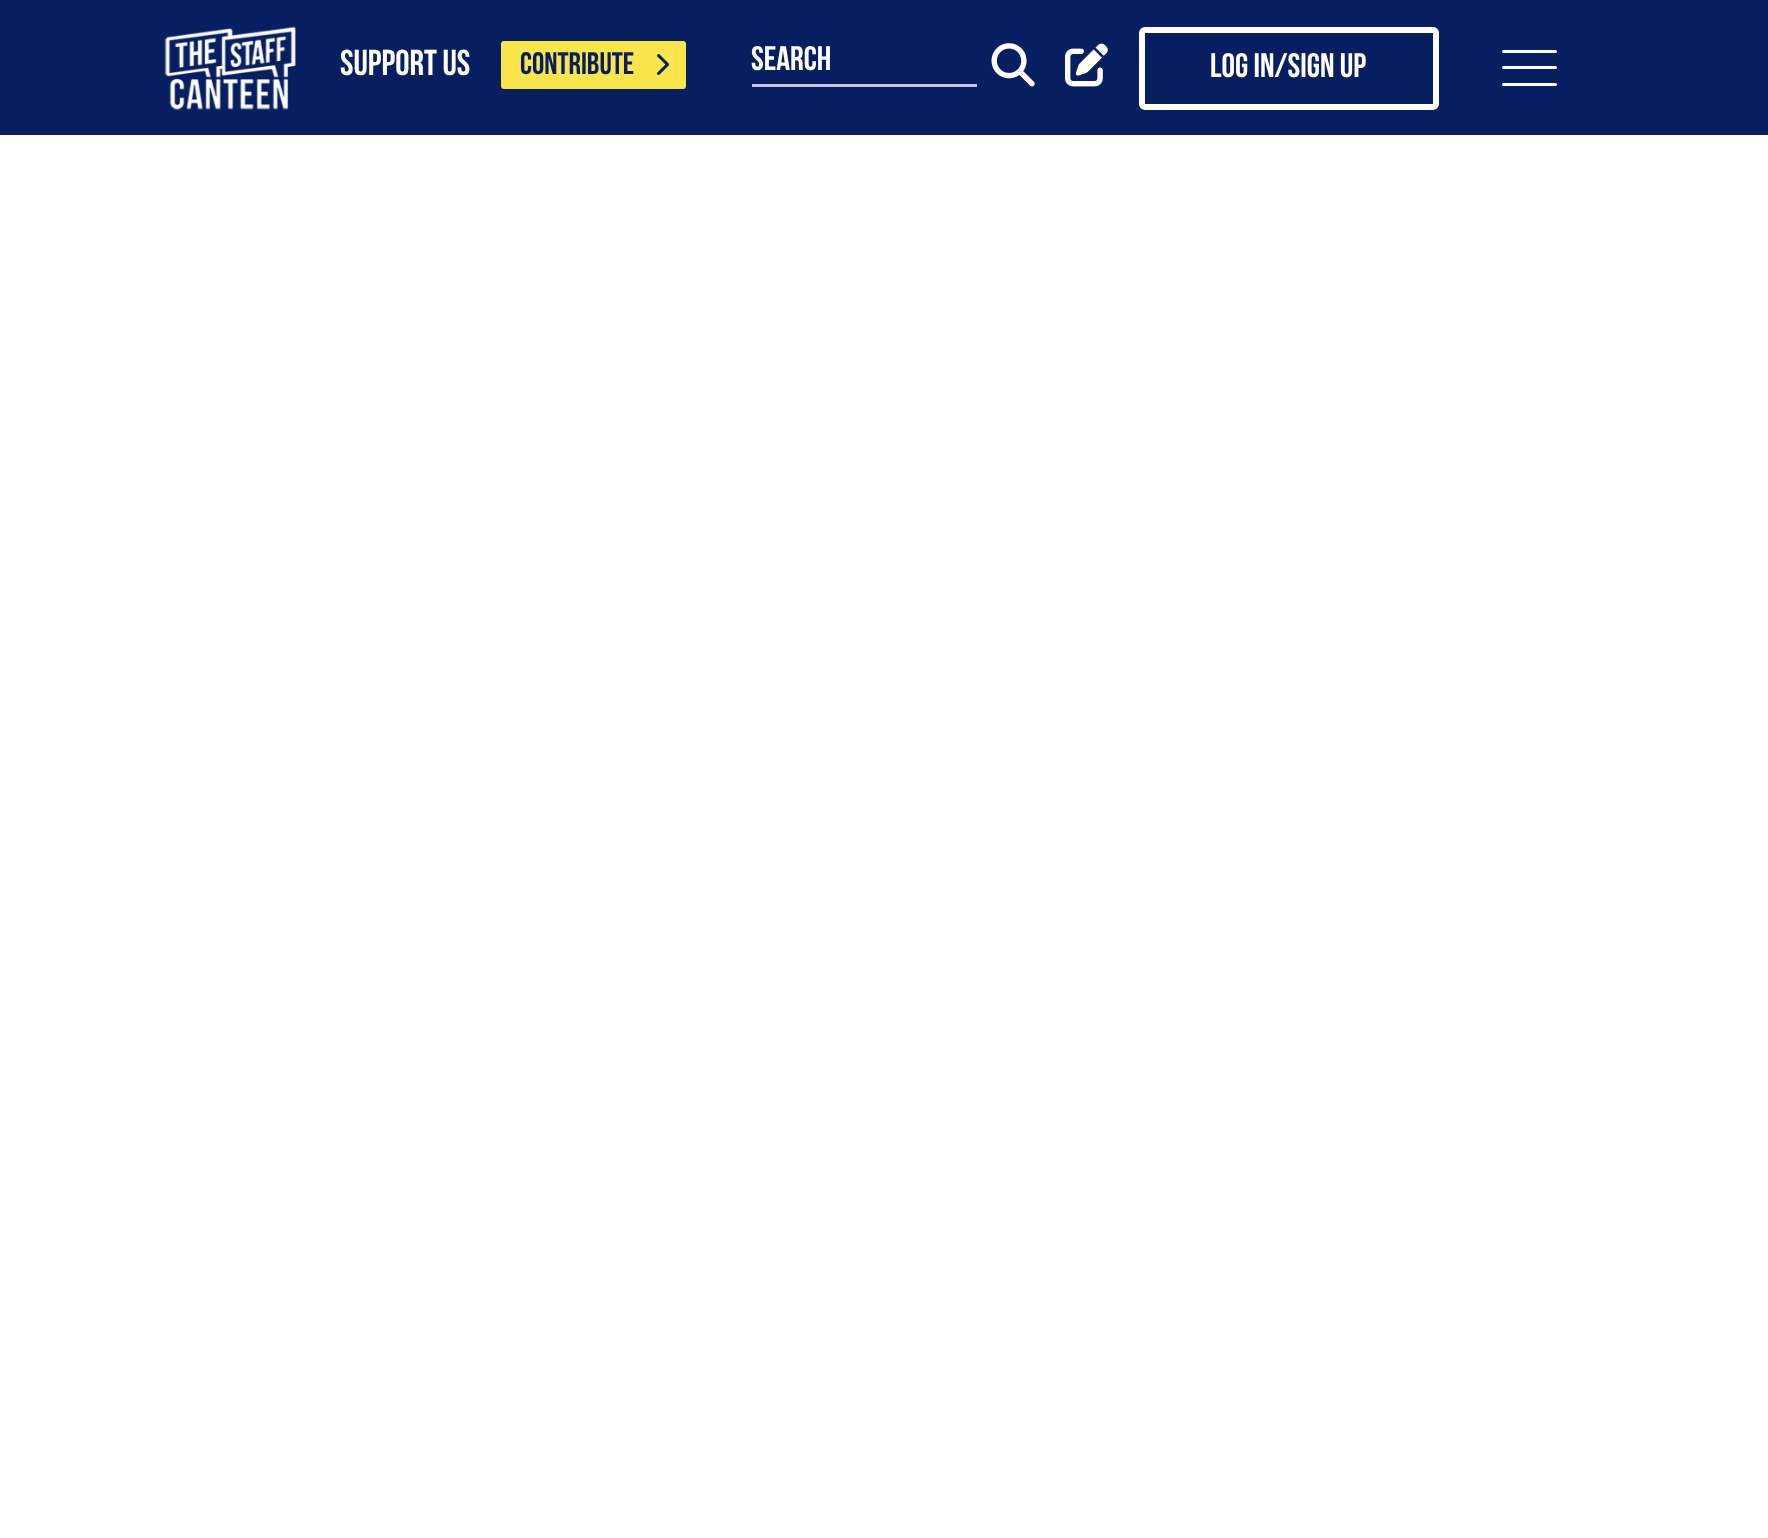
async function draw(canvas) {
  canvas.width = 1768;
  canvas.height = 1538;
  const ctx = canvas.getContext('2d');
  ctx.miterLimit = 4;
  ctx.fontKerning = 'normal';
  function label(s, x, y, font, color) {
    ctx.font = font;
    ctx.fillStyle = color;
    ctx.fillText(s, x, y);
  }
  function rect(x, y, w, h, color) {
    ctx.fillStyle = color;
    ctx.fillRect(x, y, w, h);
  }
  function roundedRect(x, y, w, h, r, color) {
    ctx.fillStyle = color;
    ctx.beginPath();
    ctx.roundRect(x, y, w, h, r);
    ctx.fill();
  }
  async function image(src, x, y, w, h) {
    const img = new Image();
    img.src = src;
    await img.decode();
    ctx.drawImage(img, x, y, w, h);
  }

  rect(0, 0, 1768, 1538, '#fff');
  rect(0, 0, 1768, 135, '#071f60');
  await image('assets/img1.png', 164, 26, 132, 84);
  label('SUPPORT US', 340, 75, 'bold 36px Bebas Neue', '#fff');
  roundedRect(501, 41, 185, 48, 3, '#fae54d');
  label('CONTRIBUTE', 520, 74, 'bold 31px Bebas Neue', '#071f60');
  await image('assets/img2.png', 657, 54, 12, 21);
  rect(752, 84, 225, 3, '#c1c7d7');
  label('search', 751, 70, 'bold 34px Bebas Neue', '#fff');
  await image('assets/img3.png', 991, 43, 44, 44);
  await image('assets/img4.png', 1065, 43, 43, 44);
  ctx.beginPath();
  ctx.roundRect(1142, 30, 294, 77, 3);
  ctx.strokeStyle = '#fff';
  ctx.lineWidth = 6;
  ctx.stroke();
  label('Log in/Sign up', 1210, 77, 'bold 34px Bebas Neue', '#fff');
  roundedRect(1502, 50, 55, 3, 1.5, '#fff');
  roundedRect(1502, 66, 55, 3, 1.5, '#fff');
  roundedRect(1502, 83, 55, 3, 1.5, '#fff');
}

draw(document.querySelector('canvas'));
